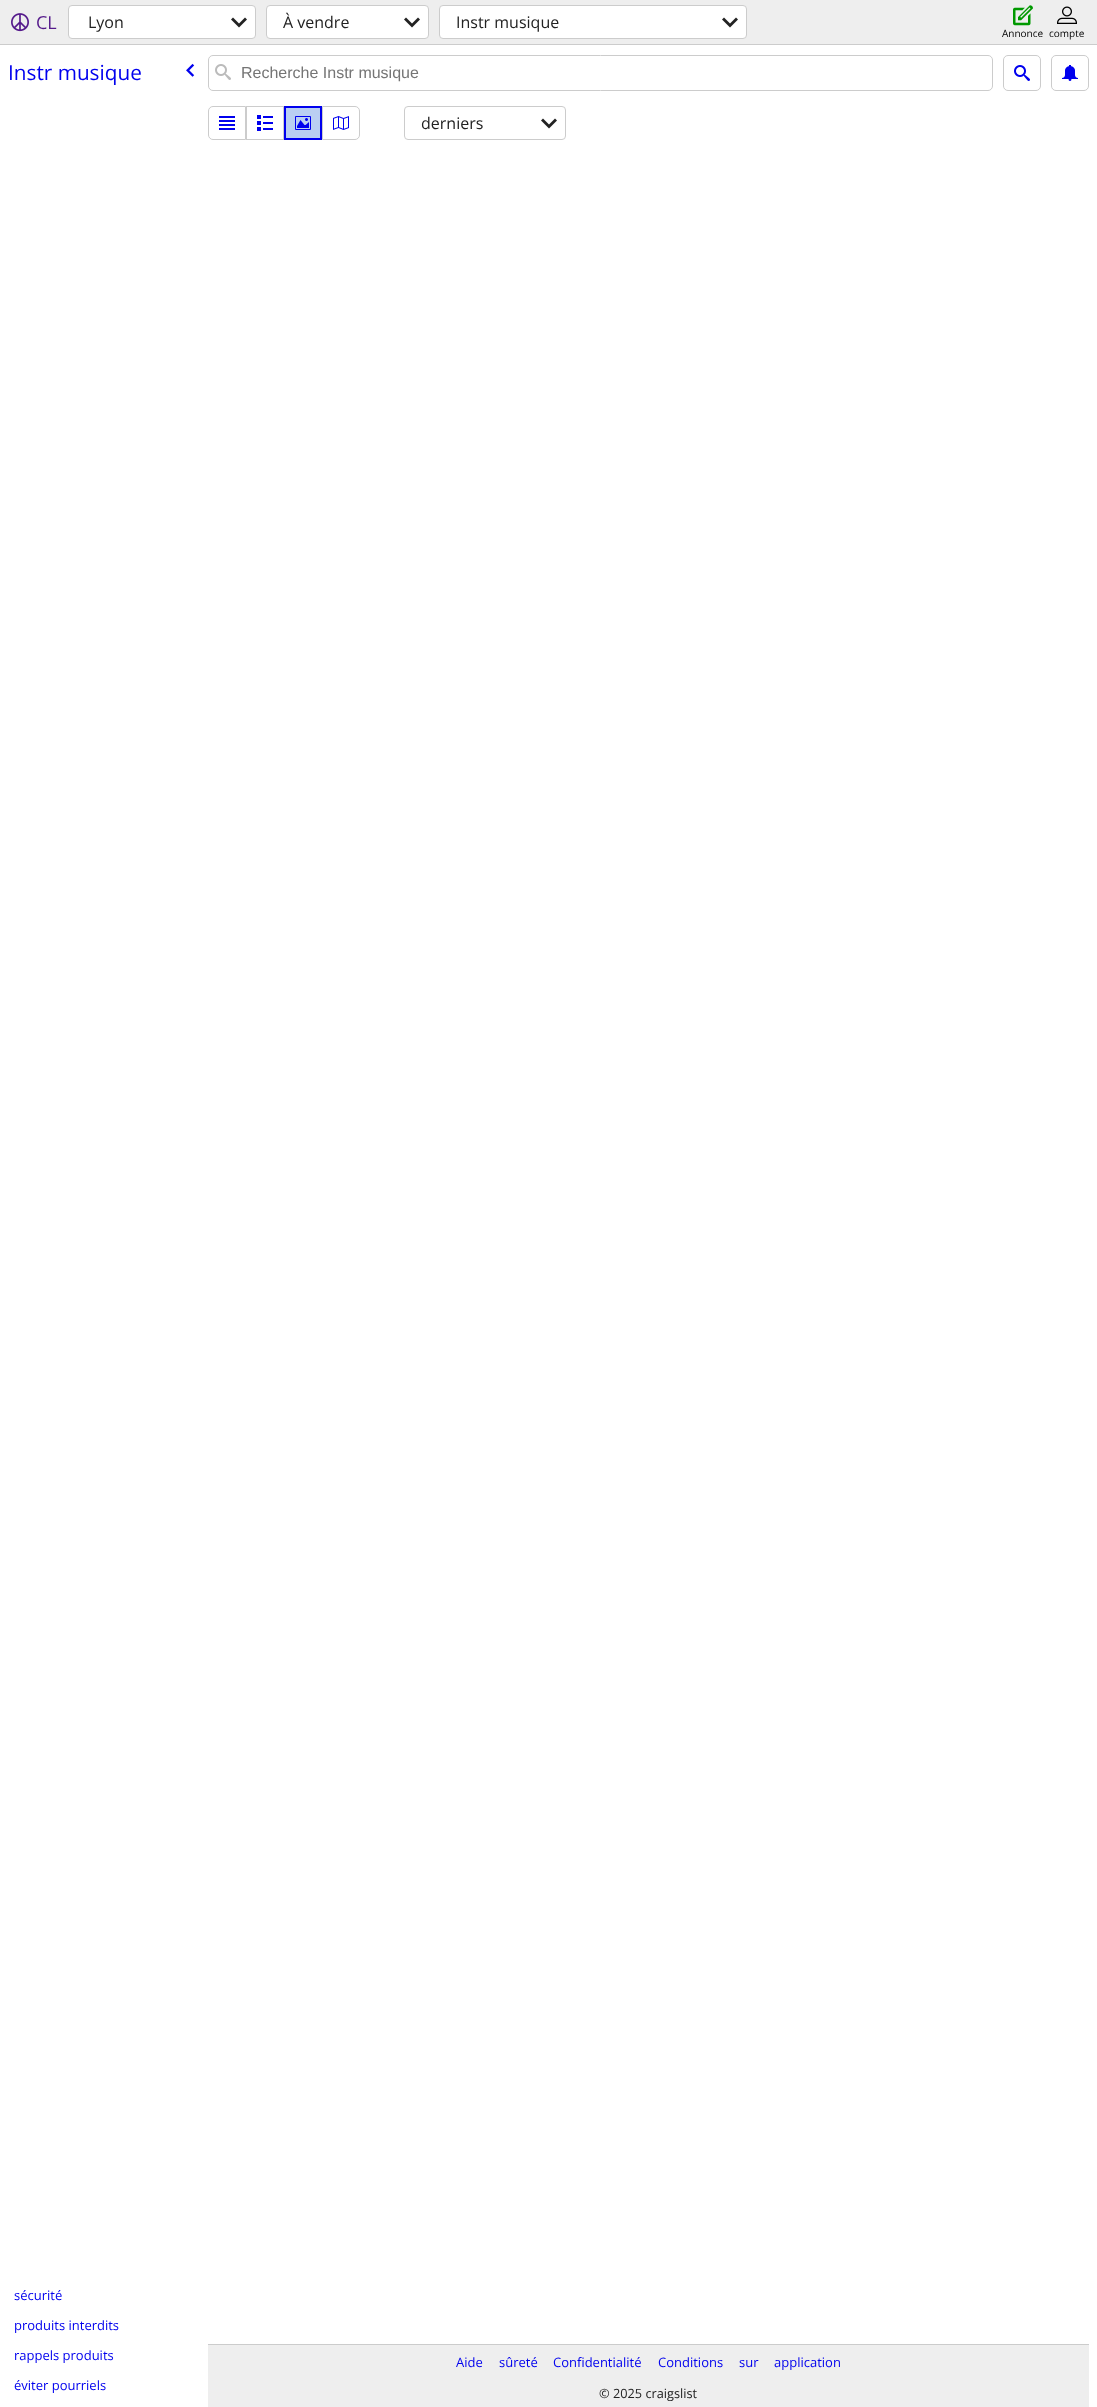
async function draw(canvas) {
  canvas.width = 1097;
  canvas.height = 2407;
  const ctx = canvas.getContext('2d');
  ctx.miterLimit = 4;
  ctx.fontKerning = 'normal';
  function label(s, x, y, font, color) {
    ctx.font = font;
    ctx.fillStyle = color;
    ctx.fillText(s, x, y);
  }
  function rect(x, y, w, h, color) {
    ctx.fillStyle = color;
    ctx.fillRect(x, y, w, h);
  }
  async function image(src, x, y, w, h) {
    const img = new Image();
    img.src = src;
    await img.decode();
    ctx.drawImage(img, x, y, w, h);
  }

  rect(0, 0, 1097, 2407, '#fff');
  rect(0, 0, 1097, 44, '#eee');
  rect(0, 44, 1097, 1, '#ccc');
  await image('assets/img1.png', 11, 13, 18, 19);
  label('CL', 36, 29, '18px Open Sans', '#551a8b');
  ctx.fillStyle = '#fff';
  ctx.beginPath();
  ctx.roundRect(68.5, 5.5, 187, 33, 3.5);
  ctx.fill();
  ctx.strokeStyle = '#ccc';
  ctx.stroke();
  label('Lyon', 88, 28, '16px Open Sans', '#222');
  await image('assets/img2.png', 231, 17, 16, 11);
  ctx.fillStyle = '#fff';
  ctx.beginPath();
  ctx.roundRect(266.5, 5.5, 162, 33, 3.5);
  ctx.fill();
  ctx.stroke();
  label('À vendre', 283, 28, '16px Open Sans', '#222');
  await image('assets/img2.png', 404, 17, 16, 11);
  ctx.fillStyle = '#fff';
  ctx.beginPath();
  ctx.roundRect(439.5, 5.5, 307, 33, 3.5);
  ctx.fill();
  ctx.stroke();
  label('Instr musique', 456, 28, '16px Open Sans', '#222');
  await image('assets/img2.png', 722, 17, 16, 11);
  await image('assets/img3.png', 1013, 5, 20, 21);
  label('Annonce', 1002, 37, '10px Open Sans', '#000');
  await image('assets/img4.png', 1057, 6, 20, 18);
  label('compte', 1049, 37, '10px Open Sans', '#000');
  label('Instr musique', 8, 80, '20.75px Open Sans', '#00e');
  await image('assets/img5.png', 186, 63, 9, 14);
  label('sécurité', 14, 2300, '13px Open Sans', '#00e');
  label('produits interdits', 14, 2330, '13px Open Sans', '#00e');
  label('rappels produits', 14, 2360, '13px Open Sans', '#00e');
  label('éviter pourriels', 14, 2390, '13px Open Sans', '#00e');
  ctx.beginPath();
  ctx.roundRect(208.5, 55.5, 784, 35, 4.5);
  ctx.stroke();
  await image('assets/img6.png', 215, 64, 16, 16);
  label('Recherche Instr musique', 241, 78, '16px Liberation Sans', '#757575');
  ctx.beginPath();
  ctx.roundRect(1003.5, 55.5, 37, 35, 4.5);
  ctx.stroke();
  await image('assets/img7.png', 1014, 65, 16, 16);
  ctx.beginPath();
  ctx.roundRect(1051.5, 55.5, 37, 35, 4.5);
  ctx.stroke();
  await image('assets/img8.png', 1062, 65, 16, 16);
  ctx.beginPath();
  ctx.roundRect(208.5, 106.5, 37, 33, [4.5, 0, 0, 4.5]);
  ctx.stroke();
  await image('assets/img9.png', 219, 116, 16, 14);
  ctx.strokeRect(246.5, 106.5, 37, 33);
  await image('assets/img10.png', 257, 115, 16, 16);
  ctx.fillStyle = '#bacff2';
  ctx.beginPath();
  ctx.rect(285, 107, 36, 32);
  ctx.fill();
  ctx.strokeStyle = '#00e';
  ctx.lineWidth = 2;
  ctx.stroke();
  await image('assets/img11.png', 295, 116, 16, 14);
  ctx.beginPath();
  ctx.roundRect(322.5, 106.5, 37, 33, [0, 4.5, 4.5, 0]);
  ctx.strokeStyle = '#ccc';
  ctx.lineWidth = 1;
  ctx.stroke();
  await image('assets/img12.png', 333, 116, 16, 14);
  ctx.beginPath();
  ctx.roundRect(404.5, 106.5, 161, 33, 3.5);
  ctx.stroke();
  label('derniers', 421, 129, '16px Open Sans', '#222');
  await image('assets/img2.png', 541, 118, 16, 11);
  rect(208, 2345, 881, 62, '#eee');
  rect(208, 2344, 881, 1, '#ccc');
  label('Aide', 456, 2367, '13px Open Sans', '#00e');
  label('sûreté', 499, 2367, '13px Open Sans', '#00e');
  label('Confidentialité', 553, 2367, '13px Open Sans', '#00e');
  label('Conditions', 658, 2367, '13px Open Sans', '#00e');
  label('sur', 739, 2367, '13px Open Sans', '#00e');
  label('application', 774, 2367, '13px Open Sans', '#00e');
  label('© 2025 craigslist', 599, 2398, '12.75px Open Sans', '#222');
}

draw(document.querySelector('canvas'));
